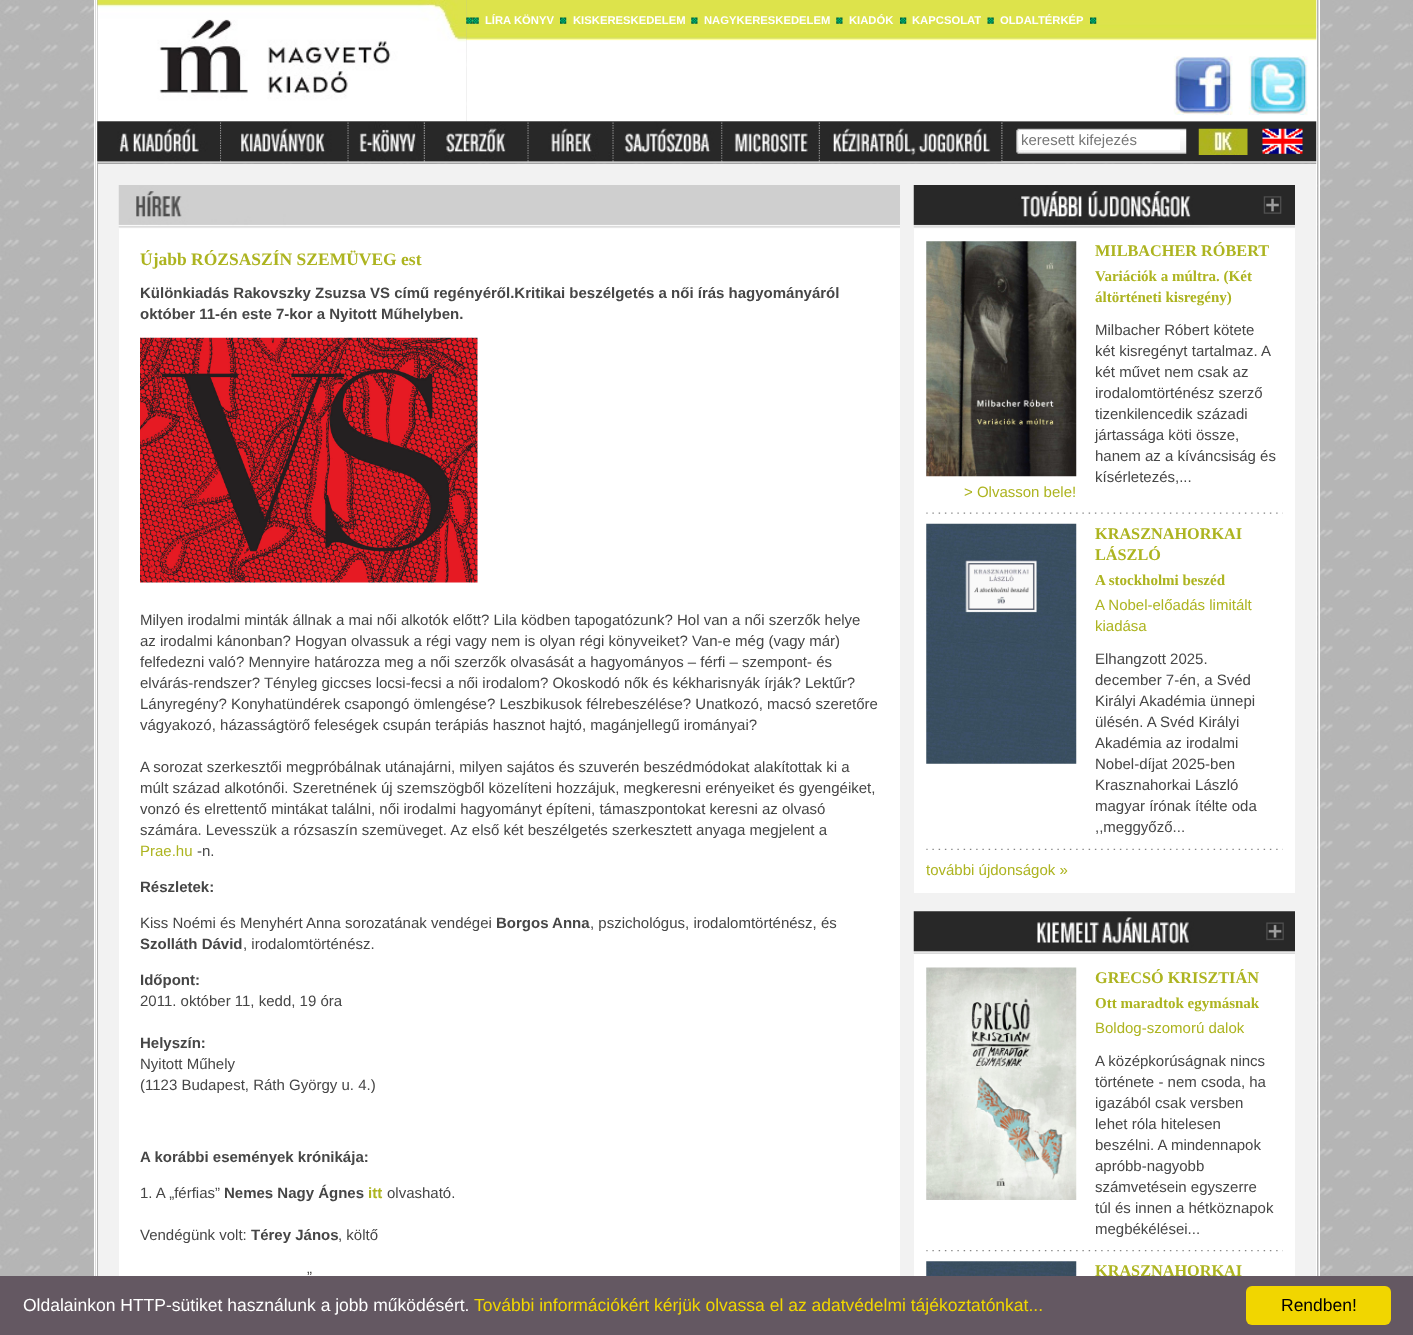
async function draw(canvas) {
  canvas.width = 1413;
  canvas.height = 1335;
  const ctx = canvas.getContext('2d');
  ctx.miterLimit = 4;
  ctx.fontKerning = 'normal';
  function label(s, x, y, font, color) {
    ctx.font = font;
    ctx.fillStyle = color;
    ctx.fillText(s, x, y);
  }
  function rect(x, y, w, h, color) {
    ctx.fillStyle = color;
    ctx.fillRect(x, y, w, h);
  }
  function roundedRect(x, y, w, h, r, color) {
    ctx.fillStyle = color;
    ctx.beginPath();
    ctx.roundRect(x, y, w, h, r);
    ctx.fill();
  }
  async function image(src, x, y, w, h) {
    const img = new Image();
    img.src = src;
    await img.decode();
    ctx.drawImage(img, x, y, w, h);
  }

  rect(0, 0, 1413, 1335, '#fff');
  await image('assets/img1.png', 0, 0, 1413, 1276);
  rect(1319, 0, 1, 1276, '#fff');
  rect(94, 0, 1, 1276, '#fff');
  rect(1318, 0, 1, 1276, '#dcdcdc');
  rect(95, 0, 1, 1276, '#dcdcdc');
  rect(1316, 0, 1, 1276, '#fff');
  rect(96, 0, 1, 1276, '#fff');
  await image('assets/img12.png', 97, 121, 1220, 43);
  await image('assets/img13.png', 97, 121, 123, 41);
  await image('assets/img14.png', 220, 121, 2, 41);
  await image('assets/img15.png', 221, 121, 127, 41);
  await image('assets/img16.png', 347, 121, 2, 41);
  await image('assets/img17.png', 348, 121, 76, 41);
  await image('assets/img18.png', 423, 121, 2, 41);
  await image('assets/img19.png', 425, 121, 103, 41);
  await image('assets/img2.png', 97, 0, 370, 122);
  await image('assets/img16.png', 527, 121, 2, 41);
  await image('assets/img20.png', 528, 121, 85, 41);
  await image('assets/img21.png', 612, 121, 2, 41);
  await image('assets/img22.png', 613, 121, 109, 41);
  await image('assets/img23.png', 721, 121, 2, 41);
  await image('assets/img24.png', 722, 121, 97, 41);
  await image('assets/img25.png', 818, 121, 2, 41);
  await image('assets/img26.png', 820, 121, 182, 41);
  await image('assets/img27.png', 1001, 121, 2, 41);
  await image('assets/img3.png', 466, 0, 851, 122);
  await image('assets/img4.png', 466, 17, 7, 7);
  await image('assets/img5.png', 472, 17, 7, 7);
  label('LÍRA KÖNYV', 485, 24, 'bold 11.25px Liberation Sans', '#fff');
  await image('assets/img6.png', 560, 17, 7, 7);
  label('KISKERESKEDELEM', 573, 24, 'bold 11.25px Liberation Sans', '#fff');
  await image('assets/img7.png', 691, 17, 7, 7);
  label('NAGYKERESKEDELEM', 704, 24, 'bold 11.25px Liberation Sans', '#fff');
  await image('assets/img7.png', 836, 17, 7, 7);
  label('KIADÓK', 849, 24, 'bold 11.25px Liberation Sans', '#fff');
  await image('assets/img8.png', 900, 17, 7, 7);
  label('KAPCSOLAT', 912, 24, 'bold 11.25px Liberation Sans', '#fff');
  await image('assets/img9.png', 987, 17, 7, 7);
  label('OLDALTÉRKÉP', 1000, 24, 'bold 11.25px Liberation Sans', '#fff');
  await image('assets/img8.png', 1090, 17, 7, 7);
  await image('assets/img10.png', 1173, 56, 60, 59);
  await image('assets/img11.png', 1248, 56, 60, 59);
  await image('assets/img28.png', 1016, 128, 171, 26);
  rect(1019, 130, 161, 20, '#fff');
  label('keresett kifejezés', 1021, 145, '15px Liberation Sans', '#777');
  await image('assets/img29.png', 1198, 128, 50, 27);
  await image('assets/img30.png', 1262, 128, 41, 26);
  rect(98, 164, 1218, 1112, '#f2f2f2');
  await image('assets/img31.png', 118, 185, 782, 44);
  rect(119, 229, 781, 1047, '#fff');
  label('Újabb RÓZSASZÍN SZEMÜVEG est', 140, 265, 'bold 17.5px Liberation Serif', '#adb420');
  label('Különkiadás Rakovszky Zsuzsa VS című regényéről.Kritikai beszélgetés a női írás hagyományáról', 140, 298, 'bold 15px Liberation Sans', '#464646');
  label('október 11-én este 7-kor a Nyitott Műhelyben.', 140, 319, 'bold 15px Liberation Sans', '#464646');
  await image('assets/img32.png', 140, 337, 338, 246);
  label('Milyen irodalmi minták állnak a mai női alkotók előtt? Lila ködben tapogatózunk? Hol van a női szerzők helye', 140, 625, '15px Liberation Sans', '#464646');
  label('az irodalmi kánonban? Hogyan olvassuk a régi vagy nem is olyan régi könyveiket? Van-e még (vagy már)', 140, 646, '15px Liberation Sans', '#464646');
  label('felfedezni való? Mennyire határozza meg a női szerzők olvasását a hagyományos – férfi – szempont- és', 140, 667, '15px Liberation Sans', '#464646');
  label('elvárás-rendszer? Tényleg giccses locsi-fecsi a női irodalom? Okoskodó nők és kékharisnyák írják? Lektűr?', 140, 688, '15px Liberation Sans', '#464646');
  label('Lányregény? Konyhatündérek csapongó ömlengése? Leszbikusok félrebeszélése? Unatkozó, macsó szeretőre', 140, 709, '15px Liberation Sans', '#464646');
  label('vágyakozó, házasságtörő feleségek csupán terápiás hasznot hajtó, magánjellegű irományai?', 140, 730, '15px Liberation Sans', '#464646');
  label('A sorozat szerkesztői megpróbálnak utánajárni, milyen sajátos és szuverén beszédmódokat alakítottak ki a', 140, 772, '15px Liberation Sans', '#464646');
  label('múlt század alkotónői. Szeretnének új szemszögből közelíteni hozzájuk, megkeresni erényeiket és gyengéiket,', 140, 793, '15px Liberation Sans', '#464646');
  label('vonzó és elrettentő mintákat találni, női irodalmi hagyományt építeni, támaszpontokat keresni az olvasó', 140, 814, '15px Liberation Sans', '#464646');
  label('számára. Levesszük a rózsaszín szemüveget. Az első két beszélgetés szerkesztett anyaga megjelent a', 140, 835, '15px Liberation Sans', '#464646');
  label('Prae.hu', 140, 856, '15px Liberation Sans', '#adb420');
  label('-n.', 197, 856, '15px Liberation Sans', '#464646');
  label('Részletek:', 140, 892, 'bold 15px Liberation Sans', '#464646');
  label('Kiss Noémi és Menyhért Anna sorozatának vendégei', 140, 928, '15px Liberation Sans', '#464646');
  label('Borgos Anna', 496, 928, 'bold 15px Liberation Sans', '#464646');
  label(', pszichológus, irodalomtörténész, és', 590, 928, '15px Liberation Sans', '#464646');
  label('Szolláth Dávid', 140, 949, 'bold 15px Liberation Sans', '#464646');
  label(', irodalomtörténész.', 243, 949, '15px Liberation Sans', '#464646');
  label('Időpont:', 140, 985, 'bold 15px Liberation Sans', '#464646');
  label('2011. október 11, kedd, 19 óra', 140, 1006, '15px Liberation Sans', '#464646');
  label('Helyszín:', 140, 1048, 'bold 15px Liberation Sans', '#464646');
  label('Nyitott Műhely', 140, 1069, '15px Liberation Sans', '#464646');
  label('(1123 Budapest, Ráth György u. 4.)', 140, 1090, '15px Liberation Sans', '#464646');
  label('A korábbi események krónikája:', 140, 1162, 'bold 15px Liberation Sans', '#464646');
  label('1. A „férfias”', 140, 1198, '15px Liberation Sans', '#464646');
  label('Nemes Nagy Ágnes', 224, 1198, 'bold 15px Liberation Sans', '#464646');
  label('itt', 368, 1198, 'bold 15px Liberation Sans', '#adb420');
  label('olvasható.', 387, 1198, '15px Liberation Sans', '#464646');
  label('Vendégünk volt:', 140, 1240, '15px Liberation Sans', '#464646');
  label('Térey János', 251, 1240, 'bold 15px Liberation Sans', '#464646');
  label(', költő', 338, 1240, '15px Liberation Sans', '#464646');
  label('”', 307, 1282, '15px Liberation Sans', '#464646');
  await image('assets/img33.png', 913, 185, 382, 44);
  rect(914, 229, 381, 664, '#fff');
  label('MILBACHER RÓBERT', 1095, 256, 'bold 16.25px Liberation Serif', '#adb420');
  label('Variációk a múltra. (Két', 1095, 281, 'bold 15px Liberation Serif', '#adb420');
  label('áltörténeti kisregény)', 1095, 302, 'bold 15px Liberation Serif', '#adb420');
  label('Milbacher Róbert kötete', 1095, 335, '15px Liberation Sans', '#464646');
  label('két kisregényt tartalmaz. A', 1095, 356, '15px Liberation Sans', '#464646');
  label('két művet nem csak az', 1095, 377, '15px Liberation Sans', '#464646');
  label('irodalomtörténész szerző', 1095, 398, '15px Liberation Sans', '#464646');
  label('tizenkilencedik századi', 1095, 419, '15px Liberation Sans', '#464646');
  label('jártassága köti össze,', 1095, 440, '15px Liberation Sans', '#464646');
  label('hanem az a kíváncsiság és', 1095, 461, '15px Liberation Sans', '#464646');
  label('kísérletezés,...', 1095, 482, '15px Liberation Sans', '#464646');
  await image('assets/img34.png', 926, 241, 151, 236);
  label('> Olvasson bele!', 964, 497, '15px Liberation Sans', '#adb420');
  await image('assets/img35.png', 926, 512, 357, 2);
  await image('assets/img36.png', 926, 523, 151, 241);
  label('KRASZNAHORKAI', 1095, 539, 'bold 16.25px Liberation Serif', '#adb420');
  label('LÁSZLÓ', 1095, 560, 'bold 16.25px Liberation Serif', '#adb420');
  label('A stockholmi beszéd', 1095, 585, 'bold 15px Liberation Serif', '#adb420');
  label('A Nobel-előadás limitált', 1095, 610, '15px Liberation Sans', '#adb420');
  label('kiadása', 1095, 631, '15px Liberation Sans', '#adb420');
  label('Elhangzott 2025.', 1095, 664, '15px Liberation Sans', '#464646');
  label('december 7-én, a Svéd', 1095, 685, '15px Liberation Sans', '#464646');
  label('Királyi Akadémia ünnepi', 1095, 706, '15px Liberation Sans', '#464646');
  label('ülésén. A Svéd Királyi', 1095, 727, '15px Liberation Sans', '#464646');
  label('Akadémia az irodalmi', 1095, 748, '15px Liberation Sans', '#464646');
  label('Nobel-díjat 2025-ben', 1095, 769, '15px Liberation Sans', '#464646');
  label('Krasznahorkai László', 1095, 790, '15px Liberation Sans', '#464646');
  label('magyar írónak ítélte oda', 1095, 811, '15px Liberation Sans', '#464646');
  label(',,meggyőző...', 1095, 832, '15px Liberation Sans', '#464646');
  await image('assets/img37.png', 926, 848, 357, 2);
  label('további újdonságok »', 926, 875, '15px Liberation Sans', '#adb420');
  await image('assets/img38.png', 913, 911, 382, 44);
  rect(914, 955, 381, 321, '#fff');
  await image('assets/img39.png', 926, 967, 151, 233);
  label('GRECSÓ KRISZTIÁN', 1095, 983, 'bold 16.25px Liberation Serif', '#adb420');
  label('Ott maradtok egymásnak', 1095, 1008, 'bold 15px Liberation Serif', '#adb420');
  label('Boldog-szomorú dalok', 1095, 1033, '15px Liberation Sans', '#adb420');
  label('A középkorúságnak nincs', 1095, 1066, '15px Liberation Sans', '#464646');
  label('története - nem csoda, ha', 1095, 1087, '15px Liberation Sans', '#464646');
  label('igazából csak versben', 1095, 1108, '15px Liberation Sans', '#464646');
  label('lehet róla hitelesen', 1095, 1129, '15px Liberation Sans', '#464646');
  label('beszélni. A mindennapok', 1095, 1150, '15px Liberation Sans', '#464646');
  label('apróbb-nagyobb', 1095, 1171, '15px Liberation Sans', '#464646');
  label('számvetésein egyszerre', 1095, 1192, '15px Liberation Sans', '#464646');
  label('túl és innen a hétköznapok', 1095, 1213, '15px Liberation Sans', '#464646');
  label('megbékélései...', 1095, 1234, '15px Liberation Sans', '#464646');
  await image('assets/img40.png', 926, 1250, 357, 2);
  await image('assets/img41.png', 926, 1261, 151, 15);
  label('KRASZNAHORKAI', 1095, 1276, 'bold 16.25px Liberation Serif', '#adb420');
  rect(0, 1276, 1413, 59, '#645862');
  label('Oldalainkon HTTP-sütiket használunk a jobb működésért.', 23, 1311, '17.5px Liberation Sans', '#fff');
  label('További információkért kérjük olvassa el az adatvédelmi tájékoztatónkat...', 474, 1311, '17.5px Liberation Sans', '#f1d600');
  roundedRect(1246, 1286, 145, 39, 6, '#f1d600');
  label('Rendben!', 1281, 1311, '17.5px Liberation Sans', '#000');
}

draw(document.querySelector('canvas'));
